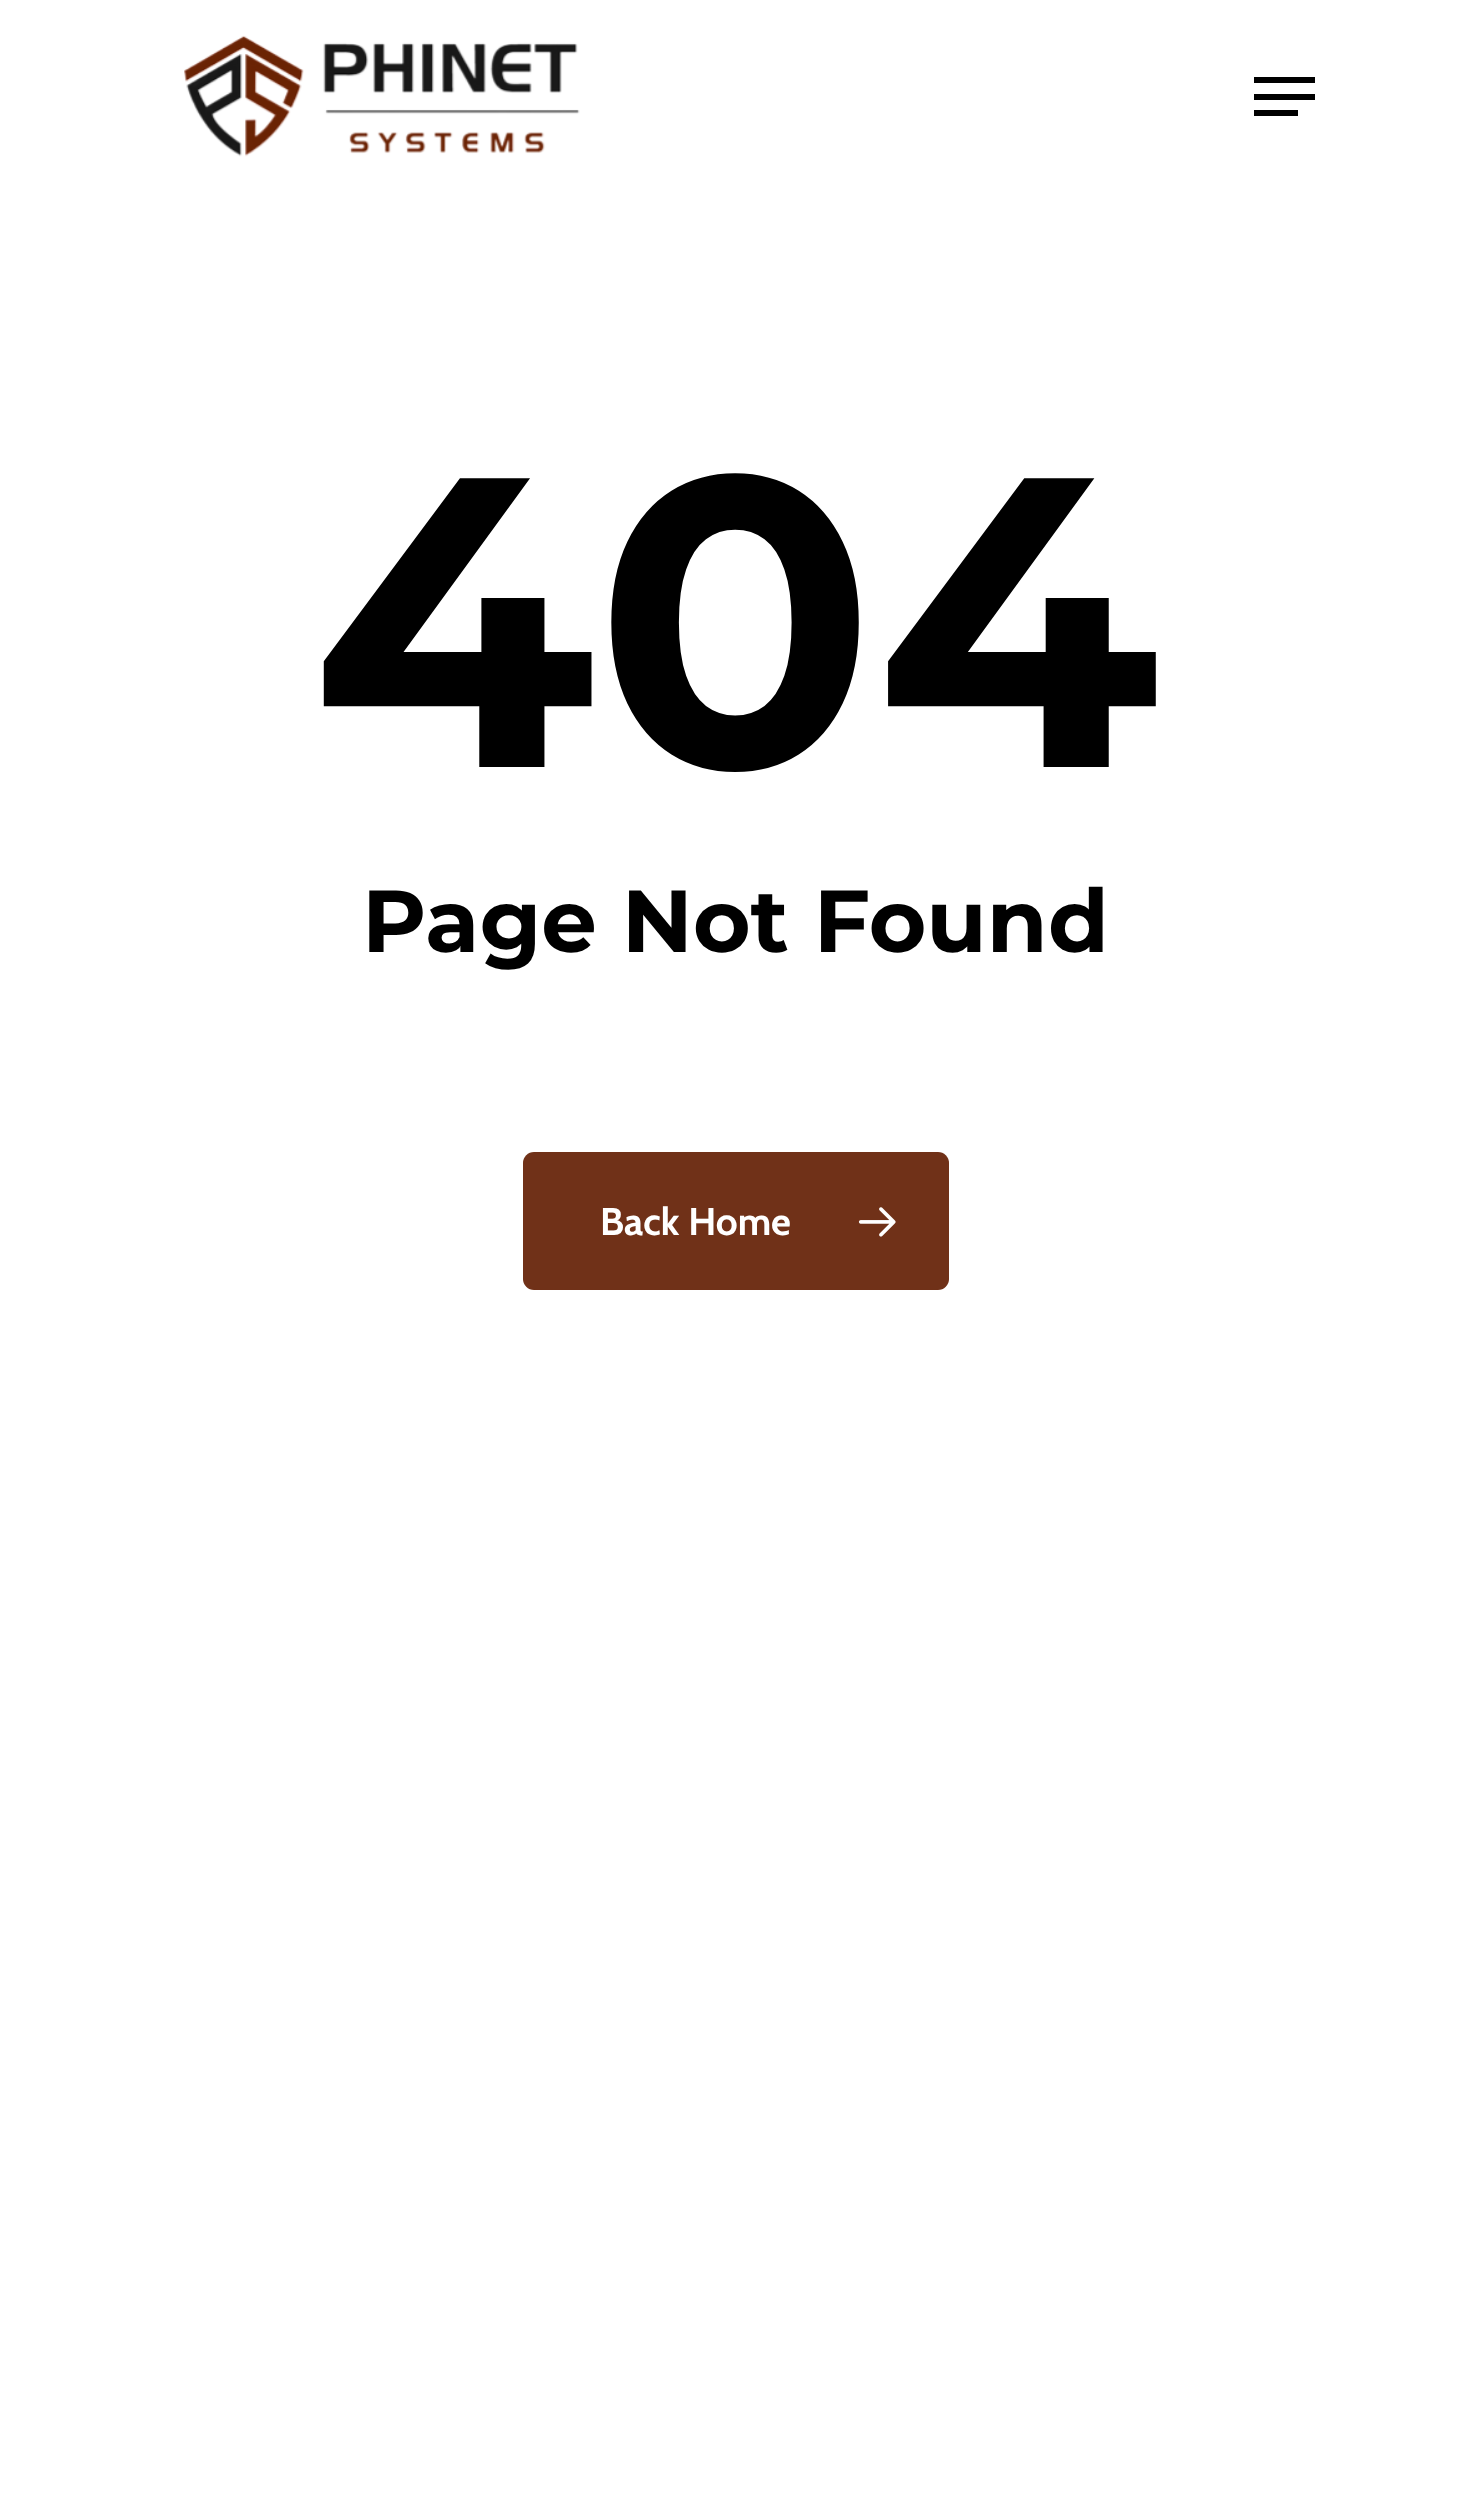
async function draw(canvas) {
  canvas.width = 1469;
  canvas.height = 2516;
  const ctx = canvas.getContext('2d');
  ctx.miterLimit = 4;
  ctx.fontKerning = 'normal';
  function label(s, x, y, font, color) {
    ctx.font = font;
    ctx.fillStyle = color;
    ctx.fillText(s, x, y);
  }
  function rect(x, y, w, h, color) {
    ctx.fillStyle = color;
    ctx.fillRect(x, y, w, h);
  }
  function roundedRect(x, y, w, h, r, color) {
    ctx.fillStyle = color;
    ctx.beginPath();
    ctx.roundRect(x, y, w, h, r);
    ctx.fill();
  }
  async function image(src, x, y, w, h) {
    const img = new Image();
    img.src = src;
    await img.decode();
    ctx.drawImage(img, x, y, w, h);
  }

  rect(0, 0, 1469, 2516, '#fff');
  await image('assets/img1.png', 184, 35, 396, 122);
  rect(1254, 77, 61, 6, '#000');
  rect(1254, 110, 44, 6, '#000');
  rect(1254, 94, 61, 6, '#000');
  label('404', 311, 767, 'bold 412.5px Montserrat', '#000');
  label('Page Not Found', 362, 952, 'bold 88px Montserrat', '#000');
  roundedRect(523, 1152, 426, 138, 11, '#703118');
  label('Back Home', 600, 1235, 'bold 38.5px Cabin', '#fff');
  await image('assets/img2.png', 858, 1207, 38, 30);
}

draw(document.querySelector('canvas'));
